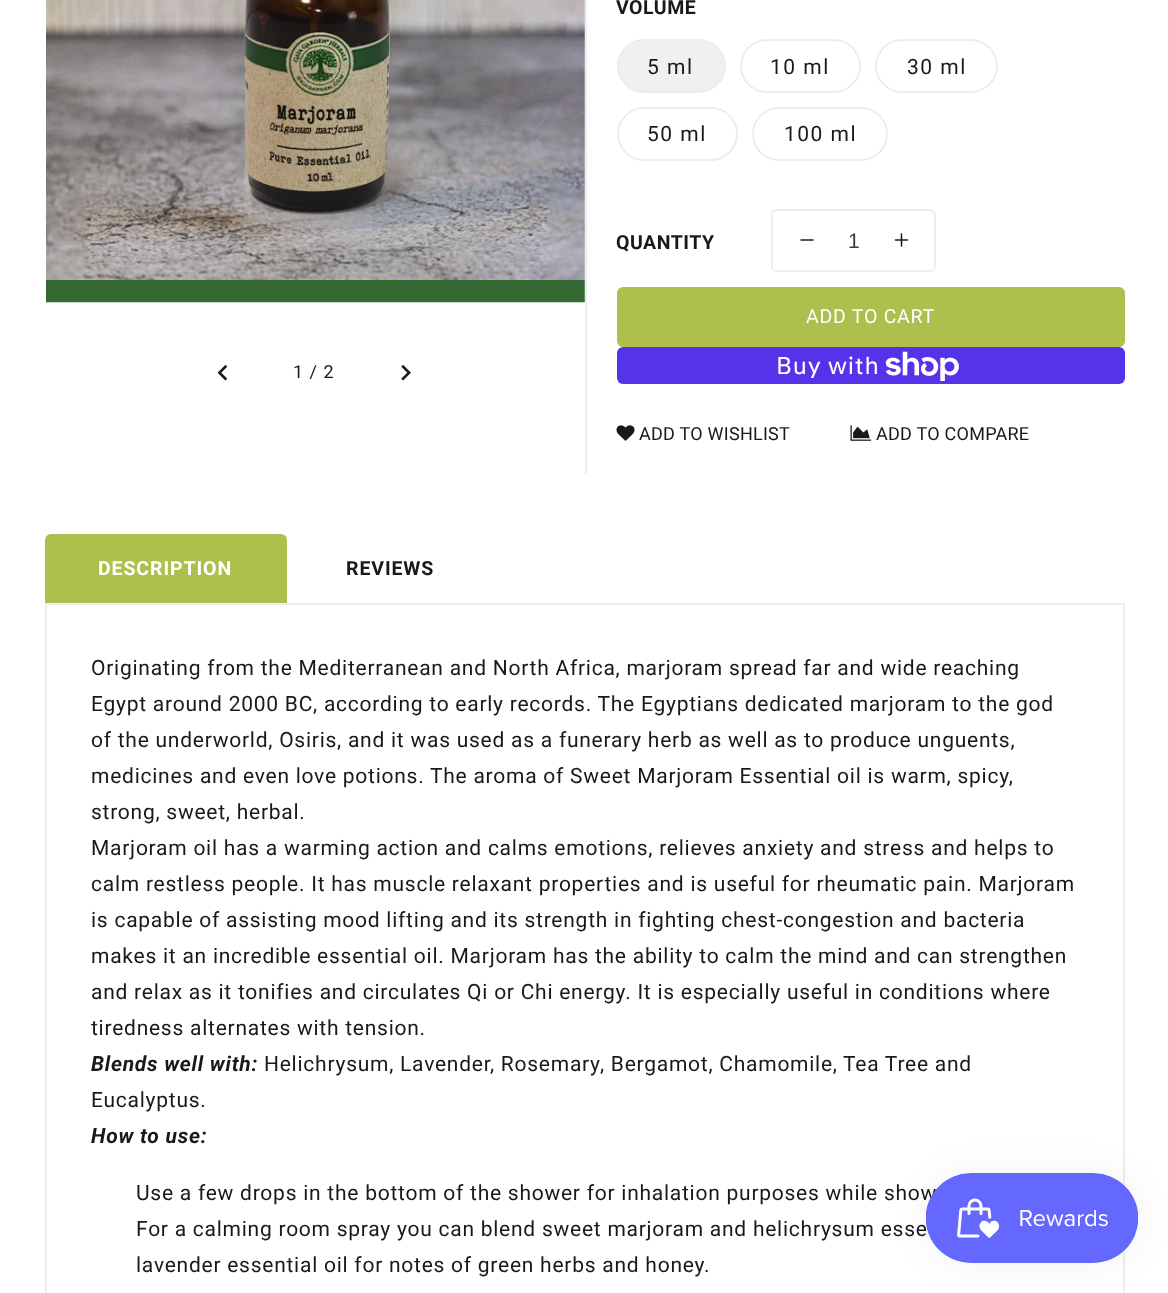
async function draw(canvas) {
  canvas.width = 1168;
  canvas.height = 1293;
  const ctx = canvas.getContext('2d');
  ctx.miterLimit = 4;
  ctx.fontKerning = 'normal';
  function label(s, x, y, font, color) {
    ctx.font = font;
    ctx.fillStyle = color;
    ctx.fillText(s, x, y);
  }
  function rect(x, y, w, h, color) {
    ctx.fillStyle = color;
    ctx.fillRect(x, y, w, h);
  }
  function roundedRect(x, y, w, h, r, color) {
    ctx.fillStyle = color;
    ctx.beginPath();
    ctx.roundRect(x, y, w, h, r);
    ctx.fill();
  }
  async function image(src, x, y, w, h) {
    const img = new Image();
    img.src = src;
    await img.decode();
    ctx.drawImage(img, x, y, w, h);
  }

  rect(0, 0, 1168, 1293, '#fff');
  await image('assets/img1.png', 46, 0, 539, 303);
  await image('assets/img2.png', 217, 364, 11, 17);
  ctx.letterSpacing = '1px';
  label('1 / 2', 293, 378, '18px Roboto', '#191919');
  await image('assets/img3.png', 401, 364, 10, 17);
  rect(585, 0, 2, 474, '#ededed');
  ctx.letterSpacing = '0.5px';
  label('VOLUME', 616, 14, 'bold 19.5px Roboto', '#191919');
  ctx.fillStyle = '#f0f0f0';
  ctx.beginPath();
  ctx.roundRect(618, 40, 107, 52, 26);
  ctx.fill();
  ctx.strokeStyle = '#ededed';
  ctx.lineWidth = 2;
  ctx.stroke();
  ctx.letterSpacing = '1.5px';
  label('5 ml', 647, 74, '21px Roboto', '#191919');
  ctx.beginPath();
  ctx.roundRect(741, 40, 119, 52, 26);
  ctx.stroke();
  label('10 ml', 770, 74, '21px Roboto', '#191919');
  ctx.beginPath();
  ctx.roundRect(876, 40, 121, 52, 26);
  ctx.stroke();
  label('30 ml', 907, 74, '21px Roboto', '#191919');
  ctx.beginPath();
  ctx.roundRect(618, 108, 119, 52, 26);
  ctx.stroke();
  label('50 ml', 647, 141, '21px Roboto', '#191919');
  ctx.beginPath();
  ctx.roundRect(753, 108, 134, 52, 26);
  ctx.stroke();
  label('100 ml', 784, 141, '21px Roboto', '#191919');
  ctx.letterSpacing = '0.5px';
  label('QUANTITY', 616, 249, 'bold 19.5px Roboto', '#191919');
  ctx.beginPath();
  ctx.roundRect(772, 210, 163, 61, 5);
  ctx.stroke();
  await image('assets/img4.png', 800, 239, 14, 2);
  ctx.letterSpacing = '0px';
  label('1', 848, 248, '21px Liberation Sans', '#3c3c3c');
  await image('assets/img5.png', 894, 233, 15, 14);
  roundedRect(617, 287, 508, 60, 6, '#afbf4d');
  ctx.letterSpacing = '0.75px';
  label('ADD TO CART', 806, 323, '19.5px Roboto', '#fff');
  roundedRect(617, 347, 508, 37, 6, '#5433eb');
  label('Buy with', 776, 374, '24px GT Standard', '#fff');
  await image('assets/img6.png', 885, 351, 74, 30);
  await image('assets/img7.png', 616, 425, 19, 16);
  ctx.letterSpacing = '0.25px';
  label('ADD TO WISHLIST', 639, 440, '18px Roboto', '#191919');
  await image('assets/img8.png', 850, 425, 22, 16);
  label('ADD TO COMPARE', 876, 440, '18px Roboto', '#191919');
  ctx.fillStyle = '#afbf4d';
  ctx.beginPath();
  ctx.roundRect(45, 534, 242, 69, [6, 6, 0, 0]);
  ctx.fill();
  ctx.letterSpacing = '0.9px';
  label('DESCRIPTION', 98, 575, 'bold 19.5px Roboto', '#fff');
  label('REVIEWS', 346, 575, 'bold 19.5px Roboto', '#191919');
  ctx.strokeRect(46, 604, 1078, 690);
  ctx.letterSpacing = '0.75px';
  label('Originating from the Mediterranean and North Africa, marjoram spread far and wide reaching', 91, 675, '21px Roboto', '#191919');
  label('Egypt around 2000 BC, according to early records. The Egyptians dedicated marjoram to the god', 91, 711, '21px Roboto', '#191919');
  label('of the underworld, Osiris, and it was used as a funerary herb as well as to produce unguents,', 91, 747, '21px Roboto', '#191919');
  label('medicines and even love potions.', 91, 783, '21px Roboto', '#191919');
  label('The aroma of Sweet Marjoram Essential oil is warm, spicy,', 430, 783, '21px Roboto', '#191919');
  label('strong, sweet, herbal.', 91, 819, '21px Roboto', '#191919');
  label('Marjoram oil has a warming action and calms emotions, relieves anxiety and stress and helps to', 91, 855, '21px Roboto', '#191919');
  label('calm restless people. It has muscle relaxant properties and is useful for rheumatic pain. Marjoram', 91, 891, '21px Roboto', '#191919');
  label('is capable of assisting mood lifting and its strength in fighting chest-congestion and bacteria', 91, 927, '21px Roboto', '#191919');
  label('makes it an incredible essential oil. Marjoram has the ability to calm the mind and can strengthen', 91, 963, '21px Roboto', '#191919');
  label('and relax as it tonifies and circulates Qi or Chi energy. It is especially useful in conditions where', 91, 999, '21px Roboto', '#191919');
  label('tiredness alternates with tension.', 91, 1035, '21px Roboto', '#191919');
  label('Blends well with:', 91, 1071, 'italic bold 21px Roboto', '#191919');
  label('Helichrysum, Lavender', 264, 1071, '21px Roboto', '#191919');
  label(', Rosemary', 490, 1071, '21px Roboto', '#191919');
  label(', Bergamot, Chamomile,', 600, 1071, '21px Roboto', '#191919');
  label('Tea Tree and', 843, 1071, '21px Roboto', '#191919');
  label('Eucalyptus.', 91, 1107, '21px Roboto', '#191919');
  label('How to use:', 91, 1143, 'italic bold 21px Roboto', '#191919');
  label('Use a few drops in the bottom of the shower for inhalation purposes while show', 136, 1200, '21px Roboto', '#191919');
  label('For a calming room spray you can blend sweet marjoram and helichrysum esse', 136, 1236, '21px Roboto', '#191919');
  label('lavender essential oil for notes of green herbs and honey.', 136, 1272, '21px Roboto', '#191919');
  ctx.fillStyle = '#0000000d';
  ctx.filter = 'blur(19px)';
  ctx.beginPath();
  ctx.roundRect(926, 1173, 213, 90, 45);
  ctx.fill();
  ctx.filter = 'none';
  await image('assets/img9.png', 925, 1173, 214, 90);
}

draw(document.querySelector('canvas'));
